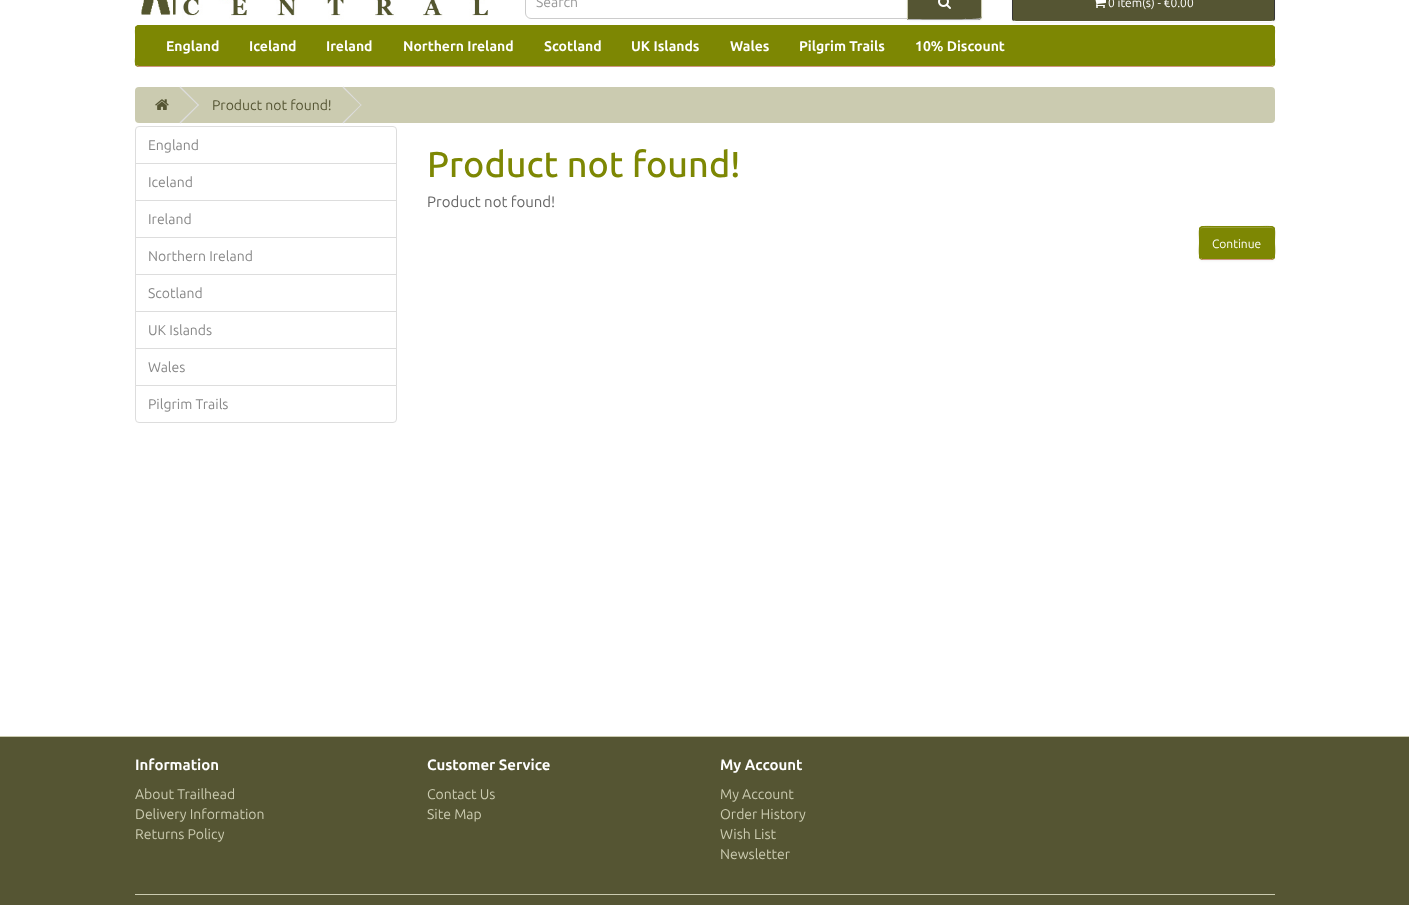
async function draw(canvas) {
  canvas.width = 1409;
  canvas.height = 905;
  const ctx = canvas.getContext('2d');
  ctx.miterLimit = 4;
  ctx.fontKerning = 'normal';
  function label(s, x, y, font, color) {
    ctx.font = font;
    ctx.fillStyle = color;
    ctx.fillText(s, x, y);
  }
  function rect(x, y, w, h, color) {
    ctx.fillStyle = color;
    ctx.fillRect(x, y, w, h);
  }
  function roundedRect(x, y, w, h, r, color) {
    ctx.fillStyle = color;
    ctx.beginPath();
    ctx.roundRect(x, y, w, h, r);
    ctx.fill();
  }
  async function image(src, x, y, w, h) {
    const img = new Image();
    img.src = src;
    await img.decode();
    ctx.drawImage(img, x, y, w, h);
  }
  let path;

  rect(0, 0, 1409, 905, '#fff');
  await image('assets/img1.png', 141, 0, 348, 20);
  path = new Path2D('M531-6.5H907.5V18.5H531C528 18.5 525.5 16 525.5 13V-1C525.5-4 528-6.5 531-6.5Z');
  ctx.strokeStyle = '#ccc';
  ctx.stroke(path);
  label('Search', 536, 7, '14px Ubuntu', '#999');
  ctx.fillStyle = '#0000000d';
  ctx.filter = 'blur(1px)';
  ctx.beginPath();
  ctx.roundRect(907, -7, 75, 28, 4);
  ctx.fill();
  ctx.filter = 'none';
  ctx.fillStyle = '#553';
  path = new Path2D('M907-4H978C980-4 982-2 982 0V16C982 18 980 20 978 20H907Z');
  ctx.fill(path);
  ctx.save();
  path = new Path2D('M907-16H978C980-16 982-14 982-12V16C982 18 980 20 978 20H907Z');
  ctx.clip(path);
  rect(908, 0, 74, 19, '#553');
  ctx.restore();
  ctx.fillStyle = '#cbcbb0';
  path = new Path2D('M982 16V-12C982-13 981.5-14 981-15L980-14C981-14 981-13 981-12V16C981 17 981 18 980 18L981 19C981.5 18 982 17 982 16Z');
  ctx.fill(path);
  ctx.fillStyle = '#b3b3b3';
  path = new Path2D('M978 20L981 19L980 18C979 20 916 19 908 19L907 20Z');
  ctx.fill(path);
  ctx.fillStyle = '#cbcbb0';
  path = new Path2D('M907-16V20L908 19V-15Z');
  ctx.fill(path);
  await image('assets/img2.png', 938, 0, 13, 9);
  ctx.fillStyle = '#0000000d';
  ctx.filter = 'blur(1px)';
  ctx.beginPath();
  ctx.roundRect(1012, -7, 263, 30, 4);
  ctx.fill();
  ctx.filter = 'none';
  ctx.save();
  ctx.beginPath();
  ctx.roundRect(1012, -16, 263, 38, 4);
  ctx.clip();
  rect(1012, 0, 263, 21, '#553');
  ctx.restore();
  path = new Path2D('M1273.5 20.5C1273 21 1272 21.5 1271 21.5H1016C1015 21.5 1014 21 1013.5 20.5');
  ctx.strokeStyle = '#fff';
  ctx.stroke(path);
  path = new Path2D('M1013.5 20.5C1013 20 1012.5 19 1012.5 18V-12C1012.5-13 1013-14 1013.5-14.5C1014-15 1015-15.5 1016-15.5H1271C1272-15.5 1273-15 1273.5-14.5C1274-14 1274.5-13 1274.5-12V18C1274.5 19 1274 20 1273.5 20.5');
  ctx.strokeStyle = '#363636';
  ctx.stroke(path);
  await image('assets/img3.png', 1095, 0, 11, 8);
  label('0 item(s) - €0.00', 1108, 7, '12px Ubuntu', '#fff');
  roundedRect(135, 25, 1140, 42, 4, '#7d8703');
  ctx.save();
  ctx.beginPath();
  ctx.roundRect(135, 25, 1140, 42, 4);
  ctx.clip();
  rect(135, 26, 1140, 40, '#7d8703');
  ctx.restore();
  path = new Path2D('M1273.5 65.5L1271 66.5H139L136.5 65.5');
  ctx.strokeStyle = '#d09683';
  ctx.stroke(path);
  path = new Path2D('M136.5 65.5C134.5 63.5 135.5 59 135.5 57.5V34.5C135.5 32 134.5 25.5 139 25.5H1271C1275.5 25.5 1274.5 32 1274.5 34.5V57.5C1274.5 59 1275.5 63.5 1273.5 65.5');
  ctx.strokeStyle = '#7d8703';
  ctx.stroke(path);
  label('England', 166, 51, 'bold 14px Ubuntu', '#fff');
  label('Iceland', 249, 51, 'bold 14px Ubuntu', '#fff');
  label('Ireland', 326, 51, 'bold 14px Ubuntu', '#fff');
  label('Northern Ireland', 403, 51, 'bold 14px Ubuntu', '#fff');
  label('Scotland', 544, 51, 'bold 14px Ubuntu', '#fff');
  label('UK Islands', 631, 51, 'bold 14px Ubuntu', '#fff');
  label('Wales', 730, 51, 'bold 14px Ubuntu', '#fff');
  label('Pilgrim Trails', 799, 51, 'bold 14px Ubuntu', '#fff');
  label('10% Discount', 915, 51, 'bold 14px Ubuntu', '#fff');
  roundedRect(135, 87, 1140, 36, 4, '#cbcbb0');
  await image('assets/img4.png', 155, 99, 14, 11);
  ctx.fillStyle = '#ddd';
  path = new Path2D('M179.5 87.5L180.5 86.5L199 105L198 105.5Z');
  ctx.fill(path);
  path = new Path2D('M179.5 122.5L198 104.5L199 105L180.5 123.5Z');
  ctx.fill(path);
  label('Product not found!', 212, 110, '14px Ubuntu', '#553');
  ctx.fillStyle = '#ddd';
  path = new Path2D('M342.5 87.5L343.5 86.5L361.5 105L361 105.5Z');
  ctx.fill(path);
  path = new Path2D('M342.5 122.5L361 104.5L361.5 105L343.5 123.5Z');
  ctx.fill(path);
  ctx.beginPath();
  ctx.roundRect(135.5, 126.5, 261, 37, [3.5, 3.5, 0, 0]);
  ctx.strokeStyle = '#ddd';
  ctx.stroke();
  label('England', 148, 150, '14px Ubuntu', '#888');
  ctx.strokeRect(135.5, 163.5, 261, 37);
  label('Iceland', 148, 187, '14px Ubuntu', '#888');
  ctx.strokeRect(135.5, 200.5, 261, 37);
  label('Ireland', 148, 224, '14px Ubuntu', '#888');
  ctx.strokeRect(135.5, 237.5, 261, 37);
  label('Northern Ireland', 148, 261, '14px Ubuntu', '#888');
  ctx.strokeRect(135.5, 274.5, 261, 37);
  label('Scotland', 148, 298, '14px Ubuntu', '#888');
  ctx.strokeRect(135.5, 311.5, 261, 37);
  label('UK Islands', 148, 335, '14px Ubuntu', '#888');
  ctx.strokeRect(135.5, 348.5, 261, 37);
  label('Wales', 148, 372, '14px Ubuntu', '#888');
  ctx.fillStyle = '#fff';
  ctx.beginPath();
  ctx.roundRect(135.5, 385.5, 261, 37, [0, 0, 3.5, 3.5]);
  ctx.fill();
  ctx.stroke();
  label('Pilgrim Trails', 148, 409, '14px Ubuntu', '#888');
  label('Product not found!', 427, 177, '500 36px Ubuntu', '#7d8703');
  label('Product not found!', 427, 207, '15px Ubuntu', '#666');
  ctx.fillStyle = '#0000000d';
  ctx.filter = 'blur(1px)';
  ctx.beginPath();
  ctx.roundRect(1199, 227, 76, 34, 4);
  ctx.fill();
  ctx.filter = 'none';
  roundedRect(1199, 226, 76, 34, 4, '#7d8703');
  ctx.save();
  ctx.beginPath();
  ctx.roundRect(1199, 226, 76, 34, 4);
  ctx.clip();
  rect(1199, 227, 76, 32, '#7d8703');
  ctx.restore();
  ctx.fillStyle = '#979f35';
  path = new Path2D('M1203 228H1271C1273 228 1274 229 1274 231C1274 224 1264 227 1260 227H1214C1210 227 1200 224 1200 231C1200 229 1201 228 1203 228Z');
  ctx.fill(path);
  path = new Path2D('M1273.5 258.5L1271.5 259.5H1202.5L1200.5 258.5');
  ctx.strokeStyle = '#d09683';
  ctx.stroke(path);
  path = new Path2D('M1200.5 258.5C1198.5 256 1199.5 246 1199.5 243C1199.5 224.5 1196.5 226.5 1214.5 226.5H1259.5C1277.5 226.5 1274.5 224.5 1274.5 243C1274.5 246 1275.5 256 1273.5 258.5');
  ctx.strokeStyle = '#7d8703';
  ctx.stroke(path);
  label('Continue', 1212, 248, '12px Ubuntu', '#fff');
  rect(0, 737, 1409, 168, '#553');
  rect(0, 736, 1409, 1, '#cbcbb0');
  label('Information', 135, 770, 'bold 15px Ubuntu', '#fff');
  label('About Trailhead', 135, 799, '14px Ubuntu', '#cbcbb0');
  label('Delivery Information', 135, 819, '14px Ubuntu', '#cbcbb0');
  label('Returns Policy', 135, 839, '14px Ubuntu', '#cbcbb0');
  label('Customer Service', 427, 770, 'bold 15px Ubuntu', '#fff');
  label('Contact Us', 427, 799, '14px Ubuntu', '#cbcbb0');
  label('Site Map', 427, 819, '14px Ubuntu', '#cbcbb0');
  label('My Account', 720, 770, 'bold 15px Ubuntu', '#fff');
  label('My Account', 720, 799, '14px Ubuntu', '#cbcbb0');
  label('Order History', 720, 819, '14px Ubuntu', '#cbcbb0');
  label('Wish List', 720, 839, '14px Ubuntu', '#cbcbb0');
  label('Newsletter', 720, 859, '14px Ubuntu', '#cbcbb0');
  rect(135, 894, 1140, 1, '#cbcbb0');
}

draw(document.querySelector('canvas'));
